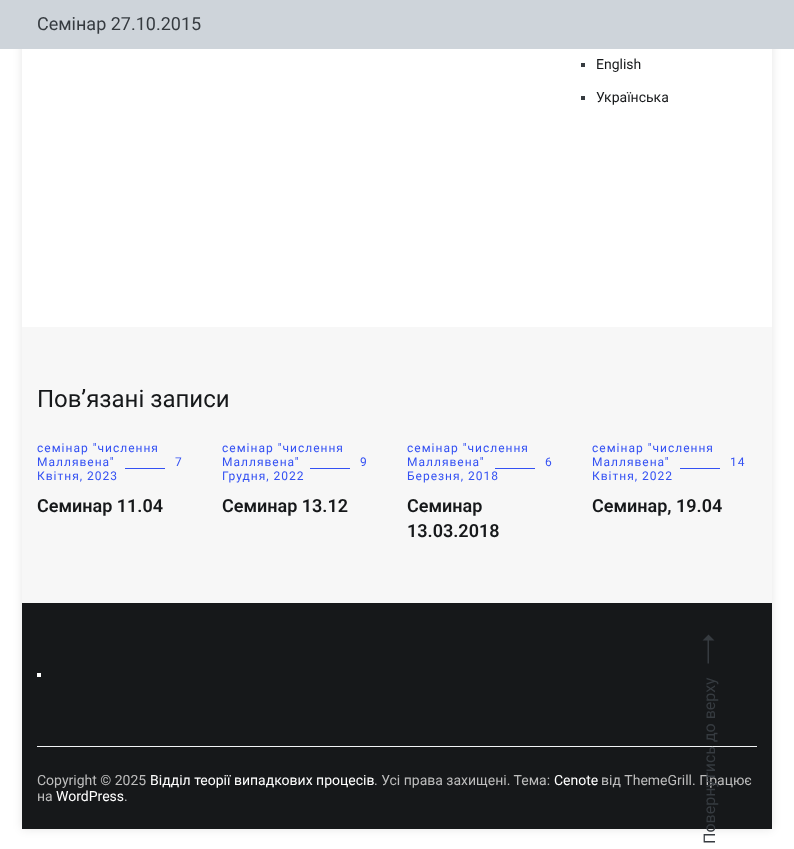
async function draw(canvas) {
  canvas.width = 794;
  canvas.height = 849;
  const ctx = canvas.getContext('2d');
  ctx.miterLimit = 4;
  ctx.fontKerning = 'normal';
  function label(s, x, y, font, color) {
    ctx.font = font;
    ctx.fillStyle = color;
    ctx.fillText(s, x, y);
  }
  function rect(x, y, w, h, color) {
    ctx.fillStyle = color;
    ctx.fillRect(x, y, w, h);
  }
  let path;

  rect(0, 0, 794, 849, '#fff');
  ctx.save();
  path = new Path2D('M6 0H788V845H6ZM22-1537H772V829H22Z');
  ctx.clip(path, 'evenodd');
  ctx.fillStyle = '#0000001a';
  ctx.filter = 'blur(5px)';
  ctx.beginPath();
  ctx.rect(22, -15, 750, 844);
  ctx.fill();
  ctx.filter = 'none';
  ctx.restore();
  rect(0, 0, 794, 49, '#ced4da');
  label('Семінар 27.10.2015', 37, 30, '18px Roboto', '#363b40');
  rect(581, 63, 4, 4, '#363b40');
  label('English', 596, 69, '14px Roboto', '#16181a');
  rect(581, 96, 4, 4, '#363b40');
  label('Українська', 596, 102, '14px Roboto', '#16181a');
  rect(22, 327, 750, 276, '#f7f7f7');
  label('Пов’язані записи', 37, 407, '24px Roboto', '#16181a');
  ctx.letterSpacing = '1px';
  label('семінар "числення', 37, 452, '12px Roboto', '#3451f3');
  label('Маллявена"', 37, 466, '12px Roboto', '#3451f3');
  label('7', 175, 466, '12px Roboto', '#3451f3');
  rect(125, 468, 40, 1, '#3451f3');
  label('Квітня, 2023', 37, 480, '12px Roboto', '#3451f3');
  ctx.letterSpacing = '0px';
  label('Семинар 11.04', 37, 512, '600 18px Roboto', '#16181a');
  ctx.letterSpacing = '1px';
  label('семінар "числення', 222, 452, '12px Roboto', '#3451f3');
  label('Маллявена"', 222, 466, '12px Roboto', '#3451f3');
  label('9', 360, 466, '12px Roboto', '#3451f3');
  rect(310, 468, 40, 1, '#3451f3');
  label('Грудня, 2022', 222, 480, '12px Roboto', '#3451f3');
  ctx.letterSpacing = '0px';
  label('Семинар 13.12', 222, 512, '600 18px Roboto', '#16181a');
  ctx.letterSpacing = '1px';
  label('семінар "числення', 407, 452, '12px Roboto', '#3451f3');
  label('Маллявена"', 407, 466, '12px Roboto', '#3451f3');
  label('6', 545, 466, '12px Roboto', '#3451f3');
  rect(495, 468, 40, 1, '#3451f3');
  label('Березня, 2018', 407, 480, '12px Roboto', '#3451f3');
  ctx.letterSpacing = '0px';
  label('Семинар', 407, 512, '600 18px Roboto', '#16181a');
  label('13.03.2018', 407, 537, '600 18px Roboto', '#16181a');
  ctx.letterSpacing = '1px';
  label('семінар "числення', 592, 452, '12px Roboto', '#3451f3');
  label('Маллявена"', 592, 466, '12px Roboto', '#3451f3');
  label('14', 730, 466, '12px Roboto', '#3451f3');
  rect(680, 468, 40, 1, '#3451f3');
  label('Квітня, 2022', 592, 480, '12px Roboto', '#3451f3');
  ctx.letterSpacing = '0px';
  label('Семинар, 19.04', 592, 512, '600 18px Roboto', '#16181a');
  rect(22, 603, 750, 226, '#16181a');
  rect(37, 673, 4, 4, '#fff');
  rect(37, 746, 720, 1, '#f1f3f5');
  label('Copyright © 2025', 37, 785, '14px Roboto', '#bdbdbd');
  label('Відділ теорії випадкових процесів', 150, 785, '14px Roboto', '#fff');
  label('. Усі права захищені. Тема:', 374, 785, '14px Roboto', '#bdbdbd');
  label('Cenote', 554, 785, '14px Roboto', '#fff');
  label('від ThemeGrill. Працює', 601, 785, '14px Roboto', '#bdbdbd');
  label('на', 37, 801, '14px Roboto', '#bdbdbd');
  label('WordPress', 56, 801, '14px Roboto', '#fff');
  label('.', 124, 801, '14px Roboto', '#bdbdbd');
  ctx.fillStyle = '#363b40';
  path = new Path2D('M708.5 634.5L714.5 640.5H702.5ZM707.5 663.5V640H709V663.5Z');
  ctx.fill(path);
  ctx.font = '16px Roboto';
  ctx.save();
  ctx.translate(715, 844);
  ctx.rotate(-90 * Math.PI / 180);
  ctx.fillText('Повернутись до верху', 0, 0);
  ctx.restore();
}

draw(document.querySelector('canvas'));
